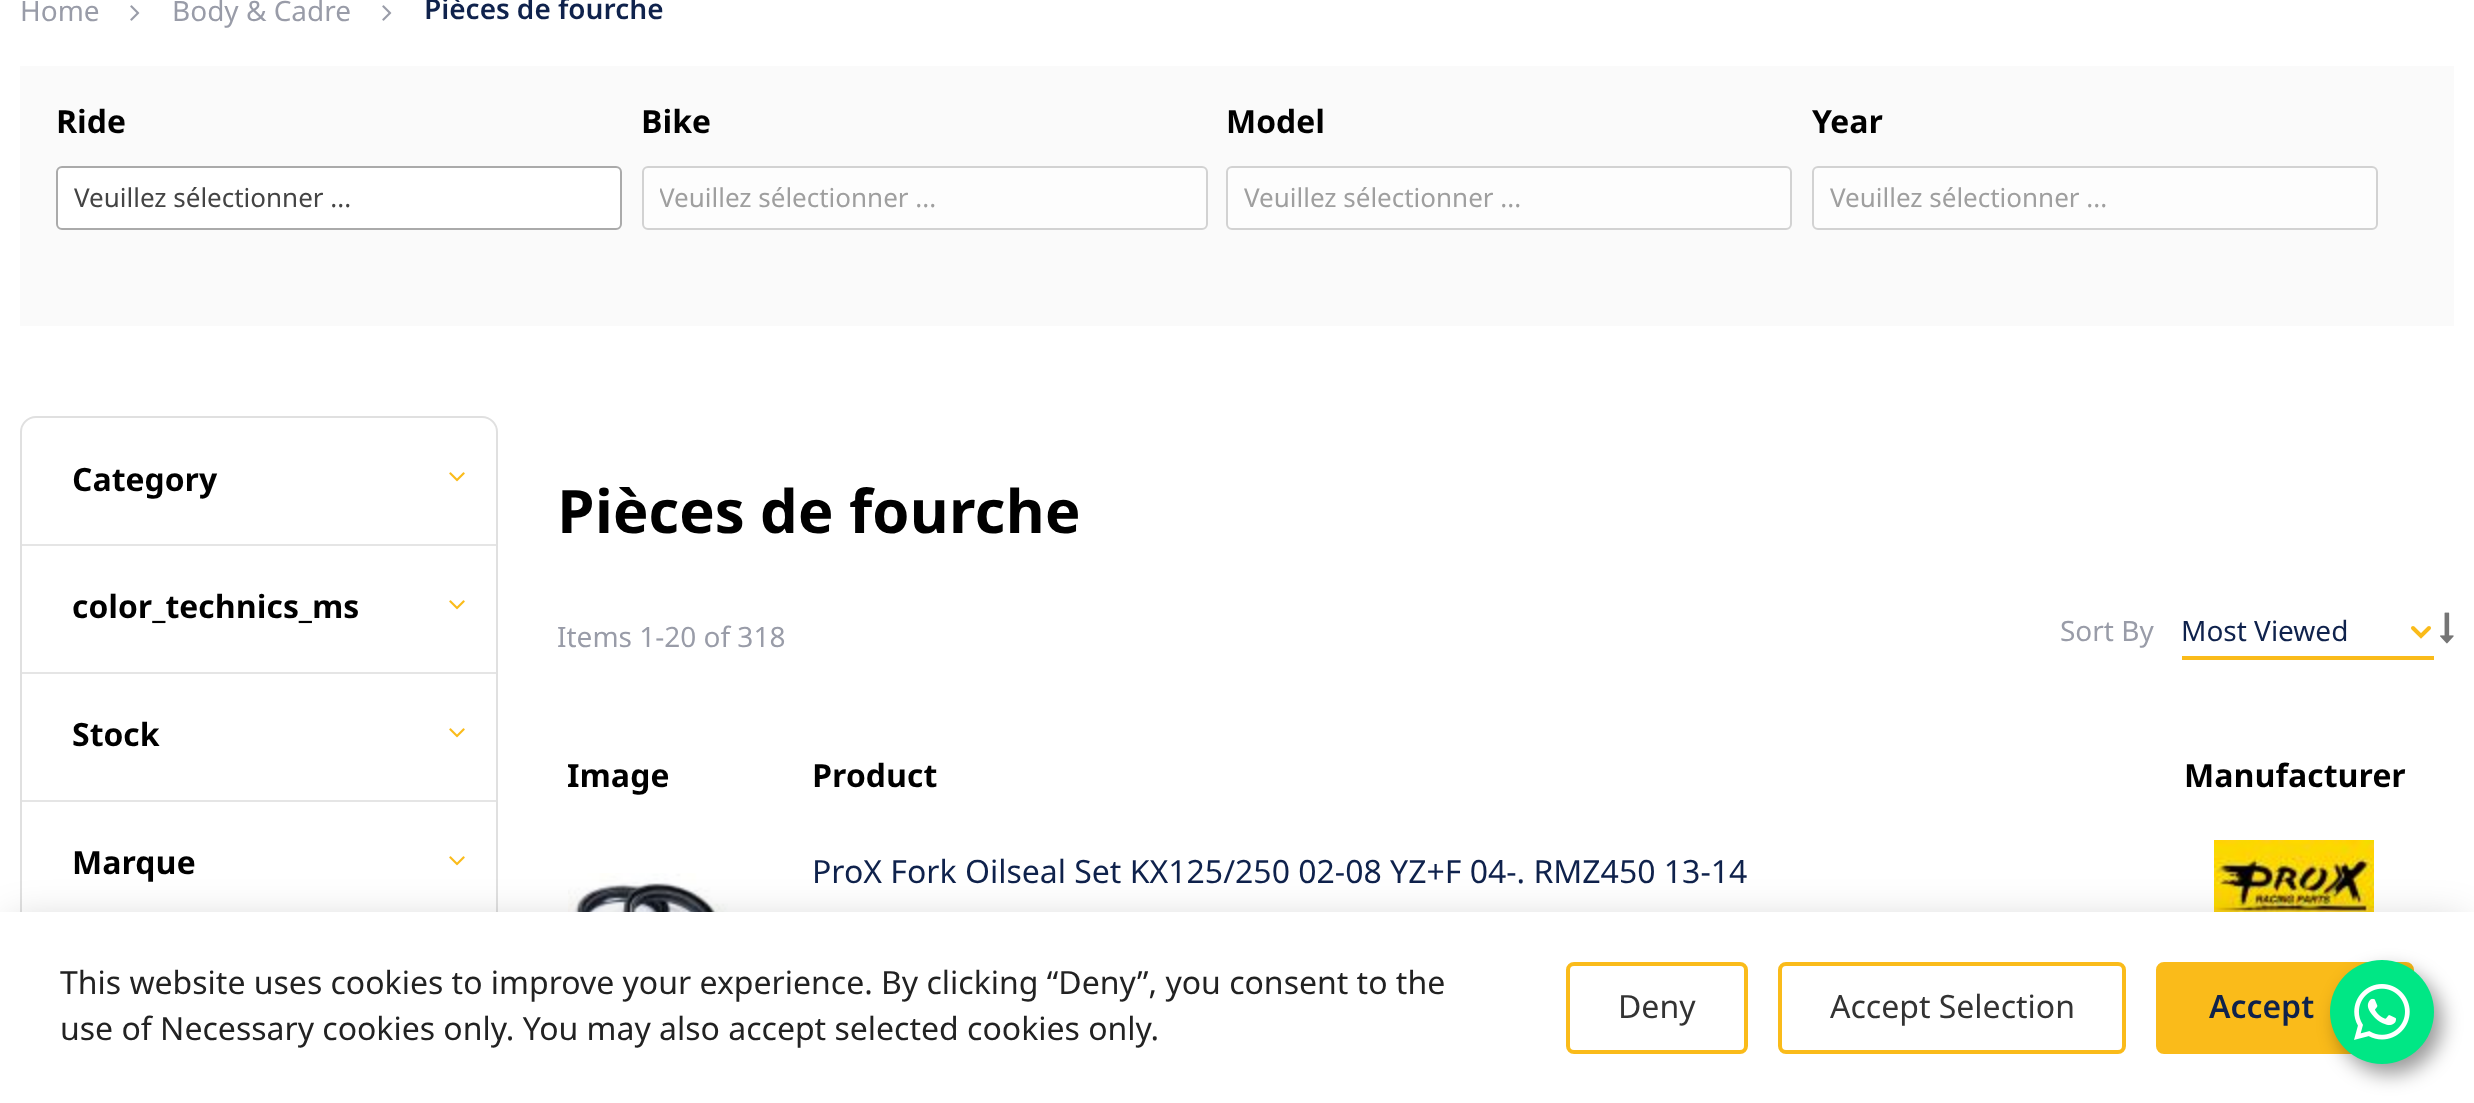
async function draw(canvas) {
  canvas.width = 2474;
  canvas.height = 1103;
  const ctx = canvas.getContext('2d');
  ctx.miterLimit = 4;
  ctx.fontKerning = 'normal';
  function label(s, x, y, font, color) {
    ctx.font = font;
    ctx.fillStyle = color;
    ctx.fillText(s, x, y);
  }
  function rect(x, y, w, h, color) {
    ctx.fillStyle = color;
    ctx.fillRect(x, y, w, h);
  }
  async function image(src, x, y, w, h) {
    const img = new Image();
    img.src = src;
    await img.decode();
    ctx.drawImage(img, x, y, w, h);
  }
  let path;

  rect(0, 0, 2474, 1103, '#fff');
  label('Home', 20, 21, '28px Noto Sans', '#999ca8');
  await image('assets/img1.png', 130, 5, 10, 16);
  label('Body & Cadre', 172, 21, '28px Noto Sans', '#999ca8');
  await image('assets/img1.png', 382, 5, 10, 16);
  label('Pièces de fourche', 424, 19, '600 28px Noto Sans', '#0f224c');
  rect(20, 66, 2434, 260, '#fafafa');
  label('Ride', 56, 133, 'bold 32px Noto Sans', '#000');
  ctx.fillStyle = '#fff';
  ctx.beginPath();
  ctx.roundRect(57, 167, 564, 62, 5);
  ctx.fill();
  ctx.strokeStyle = '#aaa';
  ctx.lineWidth = 2;
  ctx.stroke();
  label('Veuillez sélectionner ...', 74, 207, '26px Noto Sans', '#444');
  label('Bike', 641, 133, 'bold 32px Noto Sans', '#000');
  ctx.fillStyle = '#fdfdfd';
  ctx.beginPath();
  ctx.roundRect(643, 167, 564, 62, 5);
  ctx.fill();
  ctx.strokeStyle = '#d2d2d2';
  ctx.stroke();
  ctx.save();
  ctx.beginPath();
  ctx.rect(660, 168, 494, 60);
  ctx.clip();
  label('Veuillez sélectionner ...', 659, 207, '26px Noto Sans', '#9f9f9f');
  ctx.restore();
  label('Model', 1226, 133, 'bold 32px Noto Sans', '#000');
  ctx.fillStyle = '#fdfdfd';
  ctx.beginPath();
  ctx.roundRect(1227, 167, 564, 62, 5);
  ctx.fill();
  ctx.stroke();
  label('Veuillez sélectionner ...', 1244, 207, '26px Noto Sans', '#9f9f9f');
  label('Year', 1812, 133, 'bold 32px Noto Sans', '#000');
  ctx.fillStyle = '#fdfdfd';
  ctx.beginPath();
  ctx.roundRect(1813, 167, 564, 62, 5);
  ctx.fill();
  ctx.stroke();
  label('Veuillez sélectionner ...', 1830, 207, '26px Noto Sans', '#9f9f9f');
  ctx.beginPath();
  ctx.roundRect(21, 417, 476, 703, 15);
  ctx.strokeStyle = '#e0e0e0';
  ctx.stroke();
  rect(22, 544, 474, 2, '#e5e5e5');
  label('Category', 72, 491, 'bold 32px Noto Sans', '#000');
  await image('assets/img2.png', 449, 472, 16, 10);
  rect(22, 672, 474, 2, '#e5e5e5');
  label('color_technics_ms', 72, 618, 'bold 32px Noto Sans', '#000');
  await image('assets/img2.png', 449, 600, 16, 10);
  rect(22, 800, 474, 2, '#e5e5e5');
  label('Stock', 72, 746, 'bold 32px Noto Sans', '#000');
  await image('assets/img2.png', 449, 728, 16, 10);
  label('Marque', 72, 874, 'bold 32px Noto Sans', '#000');
  await image('assets/img2.png', 449, 856, 16, 10);
  label('Pièces de fourche', 557, 533, 'bold 60px Noto Sans', '#000');
  label('Items 1-20 of 318', 557, 647, '28px Noto Sans', '#999ca8');
  label('Sort By', 2060, 641, '28px Noto Sans', '#999ca8');
  rect(2182, 656, 252, 4, '#fabb1a');
  path = new Path2D('M2429 628L2421 636L2413 628');
  ctx.strokeStyle = '#fabb1a';
  ctx.lineWidth = 4;
  ctx.lineCap = 'round';
  ctx.stroke(path);
  label('Most Viewed', 2181, 641, '28px Noto Sans', '#0f224c');
  await image('assets/img3.png', 2440, 612, 14, 32);
  label('Image', 567, 787, 'bold 32px Noto Sans', '#000');
  label('Product', 812, 787, 'bold 32px Noto Sans', '#000');
  label('Manufacturer', 2184, 787, 'bold 32px Noto Sans', '#000');
  await image('assets/img4.png', 568, 873, 160, 39);
  label('ProX Fork Oilseal Set KX125/250 02-08 YZ+F 04-. RMZ450 13-14', 812, 883, '32px Noto Sans', '#0f224c');
  await image('assets/img5.png', 2214, 840, 160, 72);
  ctx.fillStyle = '#00000033';
  ctx.filter = 'blur(20px)';
  ctx.beginPath();
  ctx.rect(10, 922, 2454, 172);
  ctx.fill();
  ctx.filter = 'none';
  rect(0, 912, 2474, 191, '#fff');
  label('This website uses cookies to improve your experience. By clicking “Deny”, you consent to the', 60, 994, '32px Noto Sans', '#222');
  label('use of Necessary cookies only. You may also accept selected cookies only.', 60, 1040, '32px Noto Sans', '#222');
  ctx.beginPath();
  ctx.roundRect(1568, 964, 178, 88, 6);
  ctx.stroke();
  label('Deny', 1618, 1018, '32px Noto Sans', '#333');
  ctx.beginPath();
  ctx.roundRect(1780, 964, 344, 88, 6);
  ctx.stroke();
  label('Accept Selection', 1830, 1018, '32px Noto Sans', '#333');
  ctx.fillStyle = '#fabb1a';
  ctx.beginPath();
  ctx.roundRect(2158, 964, 254, 88, 6);
  ctx.fill();
  ctx.stroke();
  label('Accept', 2209, 1018, '600 32px Noto Sans', '#0f224c');
  ctx.fillStyle = '#00000066';
  ctx.filter = 'blur(10px)';
  ctx.beginPath();
  ctx.roundRect(2338, 970, 104, 104, 52);
  ctx.fill();
  ctx.filter = 'none';
  ctx.fillStyle = '#00e785';
  ctx.beginPath();
  ctx.arc(2382, 1012, 52, 0, 2 * Math.PI);
  ctx.fill();
  await image('assets/img6.png', 2354, 984, 56, 56);
}

draw(document.querySelector('canvas'));
